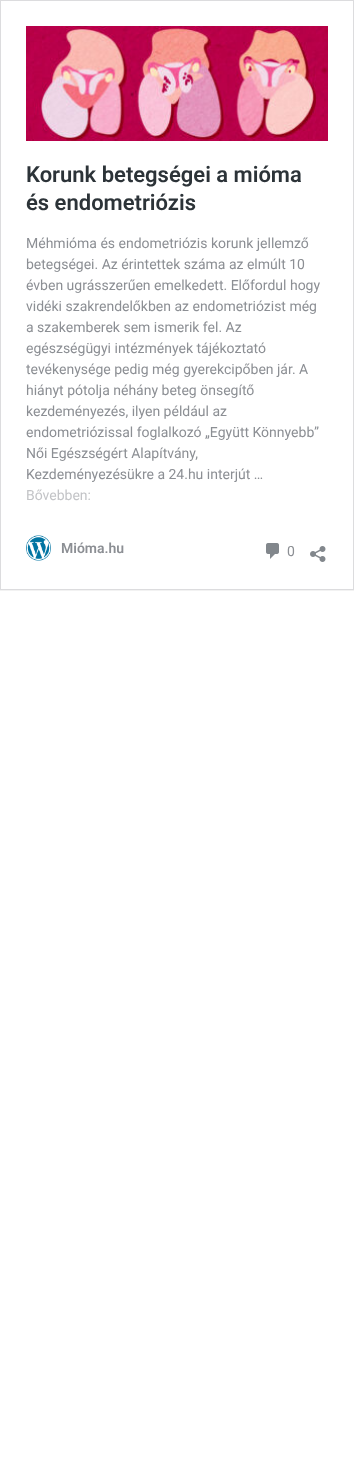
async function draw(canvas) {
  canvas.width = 354;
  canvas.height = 1473;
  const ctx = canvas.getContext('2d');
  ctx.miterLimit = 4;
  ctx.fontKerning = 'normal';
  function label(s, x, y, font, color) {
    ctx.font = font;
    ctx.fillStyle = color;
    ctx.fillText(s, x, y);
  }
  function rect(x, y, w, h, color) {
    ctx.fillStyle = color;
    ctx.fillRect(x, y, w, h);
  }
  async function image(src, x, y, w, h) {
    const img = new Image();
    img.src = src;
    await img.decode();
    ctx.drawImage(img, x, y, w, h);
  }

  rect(0, 0, 354, 1473, '#fff');
  ctx.save();
  ctx.beginPath();
  ctx.rect(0, 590, 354, 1);
  ctx.clip();
  ctx.fillStyle = '#0000000d';
  ctx.filter = 'blur(0.5px)';
  ctx.beginPath();
  ctx.rect(0, 1, 354, 590);
  ctx.fill();
  ctx.filter = 'none';
  ctx.restore();
  ctx.strokeStyle = '#dcdcde';
  ctx.strokeRect(0.5, 0.5, 353, 589);
  await image('assets/img1.png', 26, 26, 302, 115);
  label('Korunk betegségei a mióma', 26, 182, '600 22px Roboto', '#2c3338');
  label('és endometriózis', 26, 210, '600 22px Roboto', '#2c3338');
  label('Méhmióma és endometriózis korunk jellemző', 26, 248, '14px Roboto', '#8c8f94');
  label('betegségei. Az érintettek száma az elmúlt 10', 26, 269, '14px Roboto', '#8c8f94');
  label('évben ugrásszerűen emelkedett. Előfordul hogy', 26, 290, '14px Roboto', '#8c8f94');
  label('vidéki szakrendelőkben az endometriózist még', 26, 311, '14px Roboto', '#8c8f94');
  label('a szakemberek sem ismerik fel. Az', 26, 332, '14px Roboto', '#8c8f94');
  label('egészségügyi intézmények tájékoztató', 26, 353, '14px Roboto', '#8c8f94');
  label('tevékenysége pedig még gyerekcipőben jár. A', 26, 374, '14px Roboto', '#8c8f94');
  label('hiányt pótolja néhány beteg önsegítő', 26, 395, '14px Roboto', '#8c8f94');
  label('kezdeményezés, ilyen például az', 26, 416, '14px Roboto', '#8c8f94');
  label('endometriózissal foglalkozó „Együtt Könnyebb”', 26, 437, '14px Roboto', '#8c8f94');
  label('Női Egészségért Alapítvány,', 26, 458, '14px Roboto', '#8c8f94');
  label('Kezdeményezésükre a 24.hu interjút …', 26, 479, '14px Roboto', '#8c8f94');
  label('Bővebben:', 26, 500, '14px Roboto', '#c3c4c7');
  await image('assets/img2.png', 26, 535, 25, 26);
  label('Mióma.hu', 61, 553, '600 14px Roboto', '#8c8f94');
  await image('assets/img3.png', 266, 543, 13, 16);
  label('0', 287, 556, '14px Roboto', '#8c8f94');
  await image('assets/img4.png', 310, 546, 16, 16);
}

draw(document.querySelector('canvas'));
